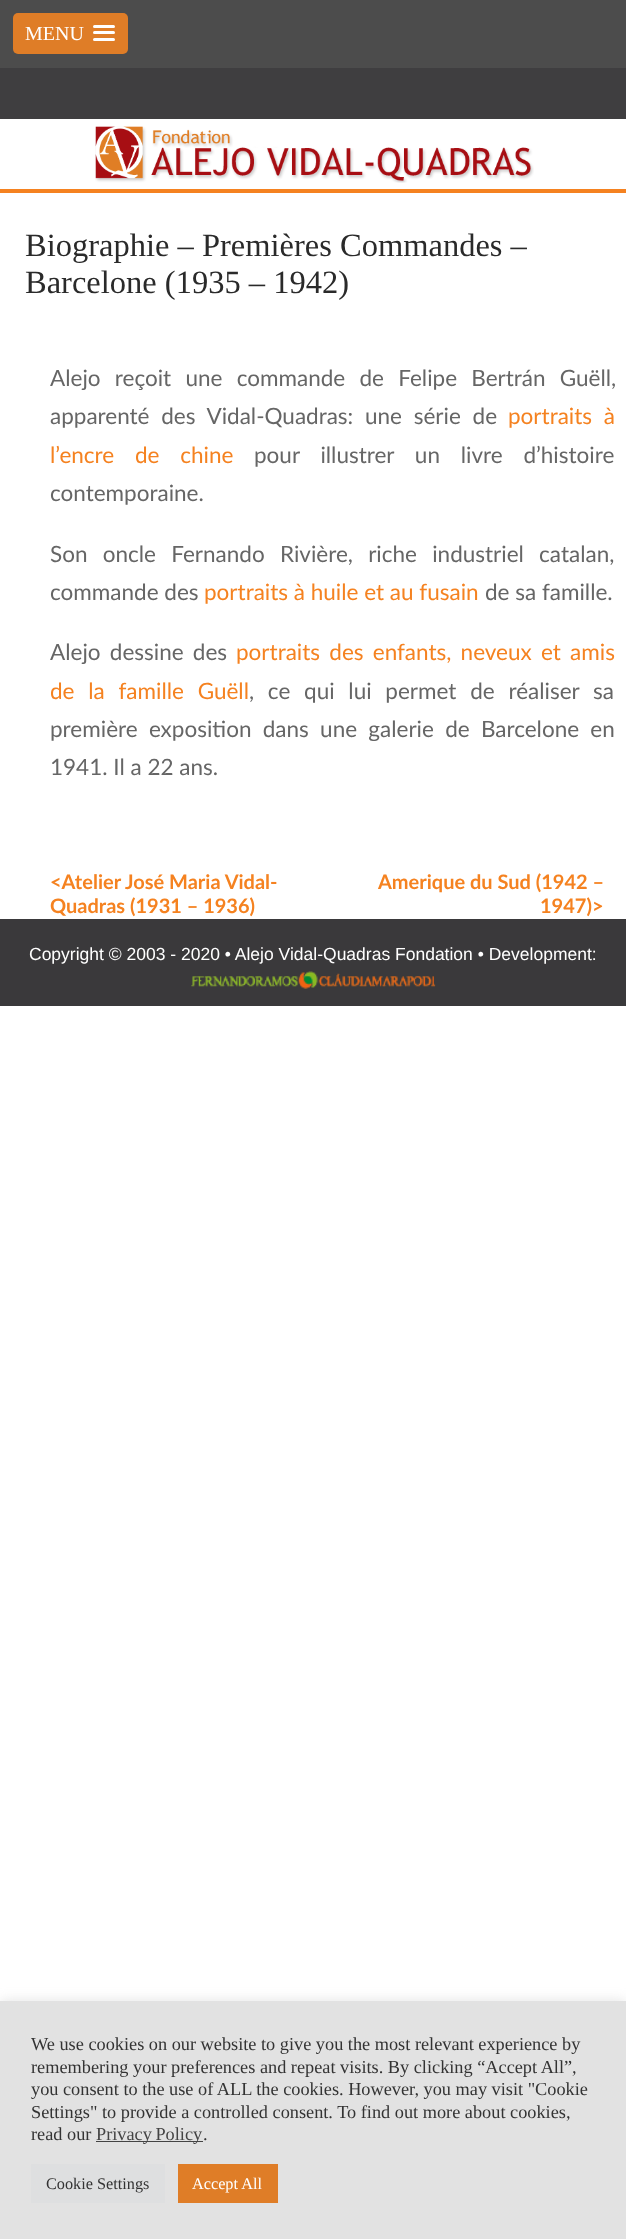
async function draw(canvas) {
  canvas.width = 626;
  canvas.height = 2239;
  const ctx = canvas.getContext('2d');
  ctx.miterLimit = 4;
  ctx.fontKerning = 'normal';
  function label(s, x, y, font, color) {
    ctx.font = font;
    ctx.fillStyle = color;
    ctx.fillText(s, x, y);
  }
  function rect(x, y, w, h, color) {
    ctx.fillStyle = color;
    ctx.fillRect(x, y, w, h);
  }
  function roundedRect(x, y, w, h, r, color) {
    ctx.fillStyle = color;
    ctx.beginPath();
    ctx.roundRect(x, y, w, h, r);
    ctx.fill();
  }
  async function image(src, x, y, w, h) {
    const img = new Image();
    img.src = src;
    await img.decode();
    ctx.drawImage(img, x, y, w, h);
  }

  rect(0, 0, 626, 2239, '#fff');
  rect(0, 0, 626, 68, '#4c4c4c');
  roundedRect(13, 13, 115, 41, 5, '#df7d27');
  label('MENU', 25, 40, '20px Liberation Serif', '#fff');
  roundedRect(93, 25, 22, 3, 1.5, '#fff');
  roundedRect(93, 31, 22, 3, 1.5, '#fff');
  roundedRect(93, 38, 22, 3, 1.5, '#fff');
  rect(0, 68, 626, 51, '#3f3e40');
  await image('assets/img1.png', 95, 126, 439, 57);
  rect(0, 189, 626, 4, '#f58220');
  label('Biographie – Premières Commandes –', 25, 256, '32.5px Liberation Serif', '#2a2a2a');
  label('Barcelone (1935 – 1942)', 25, 293, '32.5px Liberation Serif', '#2a2a2a');
  ctx.wordSpacing = '8.5px';
  label('Alejo reçoit une commande de Felipe Bertrán Guëll,', 50, 386, '22.5px Lato', '#666');
  ctx.wordSpacing = '6px';
  label('apparenté des Vidal-Quadras: une série de', 50, 424, '22.5px Lato', '#666');
  label('portraits à', 508, 424, '22.5px Lato', '#f58220');
  ctx.wordSpacing = '15px';
  label('l’encre de chine', 50, 463, '22.5px Lato', '#f58220');
  label('pour illustrer un livre d’histoire', 254, 463, '22.5px Lato', '#666');
  ctx.wordSpacing = '0px';
  label('contemporaine.', 50, 501, '22.5px Lato', '#666');
  ctx.wordSpacing = '9.5px';
  label('Son oncle Fernando Rivière, riche industriel catalan,', 50, 562, '22.5px Lato', '#666');
  ctx.wordSpacing = '0px';
  label('commande des', 50, 600, '22.5px Lato', '#666');
  label('portraits à huile et au fusain', 204, 600, '22.5px Lato', '#f58220');
  label('de sa famille.', 485, 600, '22.5px Lato', '#666');
  ctx.wordSpacing = '3.5px';
  label('Alejo dessine des', 50, 660, '22.5px Lato', '#666');
  label('portraits des enfants, neveux et amis', 236, 660, '22.5px Lato', '#f58220');
  ctx.wordSpacing = '8px';
  label('de la famille Guëll', 50, 699, '22.5px Lato', '#f58220');
  label(', ce qui lui permet de réaliser sa', 249, 699, '22.5px Lato', '#666');
  ctx.wordSpacing = '5.5px';
  label('première exposition dans une galerie de Barcelone en', 50, 737, '22.5px Lato', '#666');
  ctx.wordSpacing = '0px';
  label('1941. Il a 22 ans.', 50, 775, '22.5px Lato', '#666');
  label('<Atelier José Maria Vidal-', 50, 889, 'bold 20px Lato', '#f58220');
  label('Quadras (1931 – 1936)', 50, 913, 'bold 20px Lato', '#f58220');
  label('Amerique du Sud (1942 –', 378, 889, 'bold 20px Lato', '#f58220');
  label('1947)>', 540, 913, 'bold 20px Lato', '#f58220');
  rect(0, 919, 626, 87, '#3a393b');
  label('Copyright © 2003 - 2020 • Alejo Vidal-Quadras Fondation • Development:', 29, 960, '17.5px Liberation Sans', '#fff');
  await image('assets/img2.png', 191, 971, 245, 18);
  ctx.fillStyle = '#acabab4d';
  ctx.filter = 'blur(6px)';
  ctx.beginPath();
  ctx.rect(0, 2000, 626, 239);
  ctx.fill();
  ctx.filter = 'none';
  rect(0, 2001, 626, 238, '#e2e2e2');
  label('We use cookies on our website to give you the most relevant experience by', 31, 2050, '18.3px Liberation Serif', '#333');
  label('remembering your preferences and repeat visits. By clicking “Accept All”,', 31, 2073, '18.3px Liberation Serif', '#333');
  label('you consent to the use of ALL the cookies. However, you may visit "Cookie', 31, 2095, '18.3px Liberation Serif', '#333');
  label('Settings" to provide a controlled consent. To find out more about cookies,', 31, 2118, '18.3px Liberation Serif', '#333');
  label('read our', 31, 2140, '18.3px Liberation Serif', '#333');
  rect(96, 2141, 107, 1, '#444');
  ctx.wordSpacing = '-1px';
  label('Privacy Policy', 96, 2140, '18.3px Liberation Serif', '#444');
  ctx.wordSpacing = '0px';
  label('.', 203, 2140, '18.3px Liberation Serif', '#333');
  rect(31, 2164, 134, 39, '#dedfe0');
  label('Cookie Settings', 46, 2189, '16.25px Liberation Serif', '#333');
  rect(178, 2164, 100, 39, '#df7d27');
  label('Accept All', 192, 2189, '16.25px Liberation Serif', '#fff');
}

draw(document.querySelector('canvas'));
